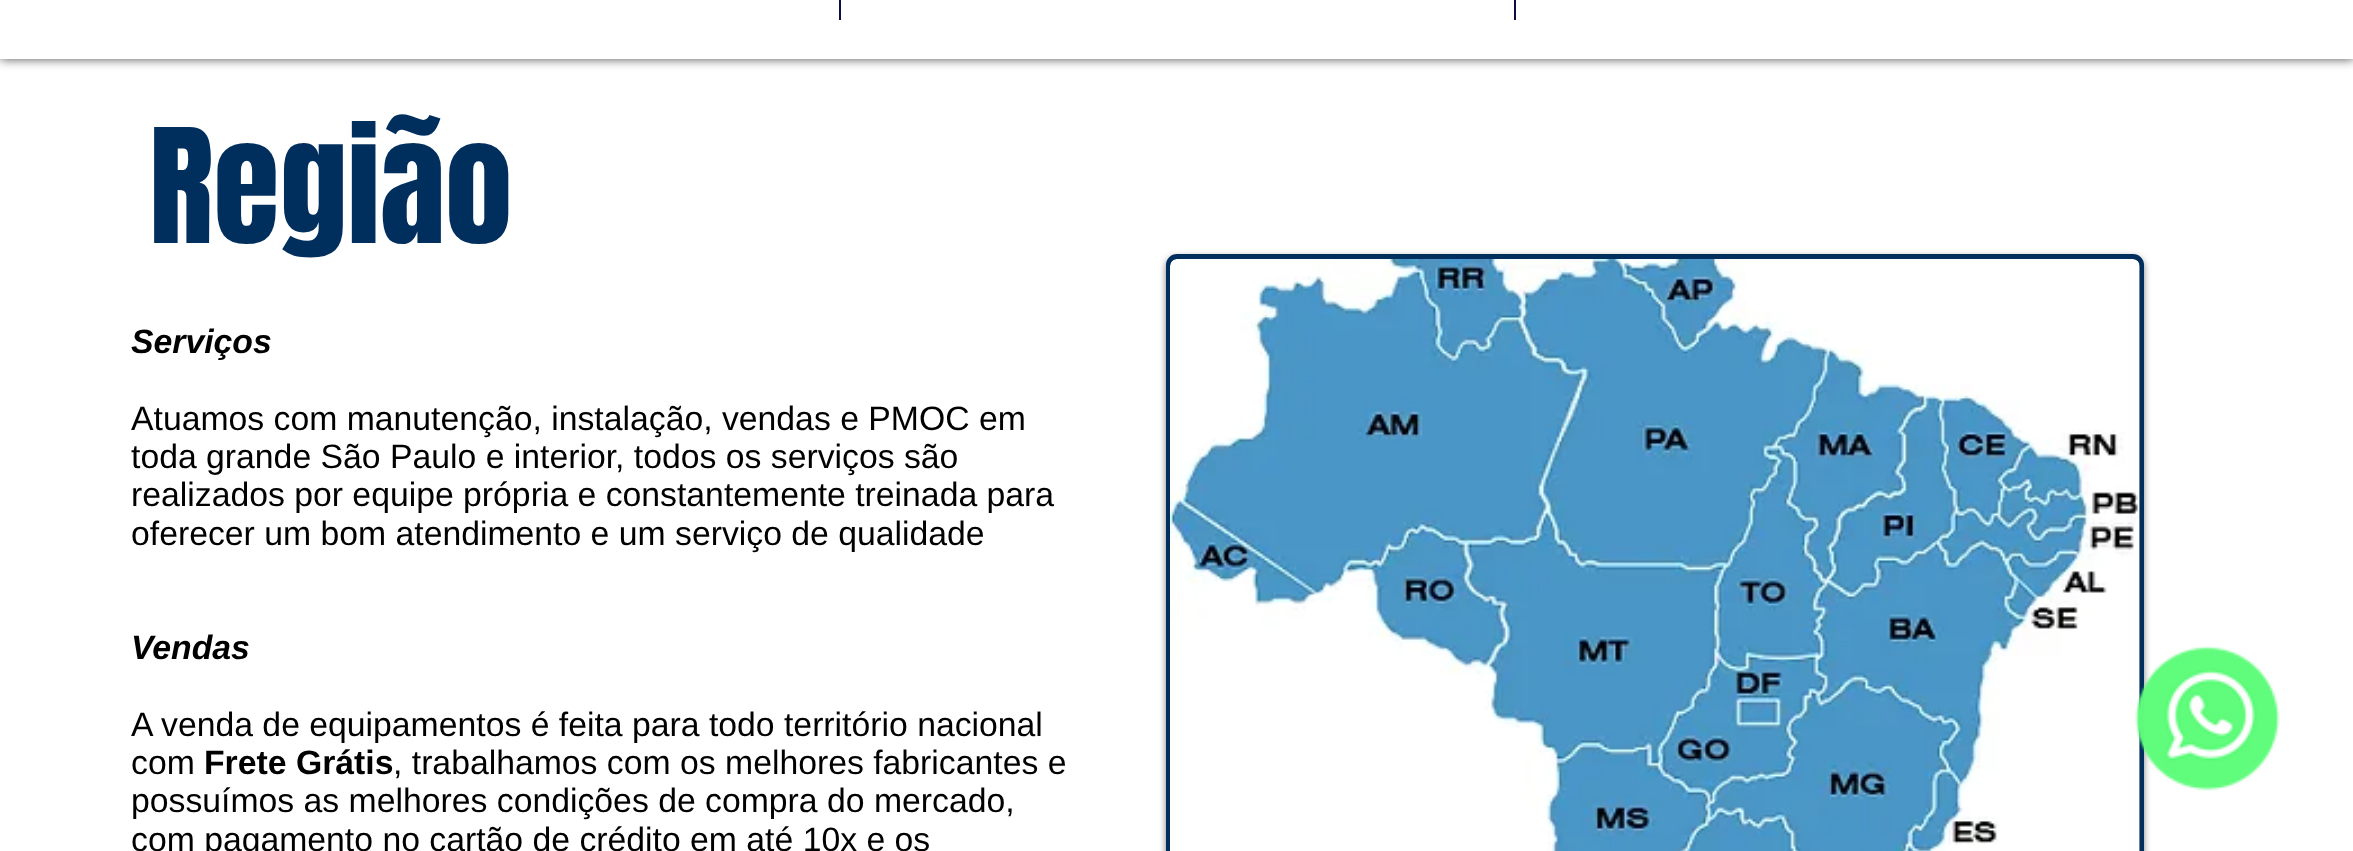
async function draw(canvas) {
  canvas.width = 2353;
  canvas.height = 851;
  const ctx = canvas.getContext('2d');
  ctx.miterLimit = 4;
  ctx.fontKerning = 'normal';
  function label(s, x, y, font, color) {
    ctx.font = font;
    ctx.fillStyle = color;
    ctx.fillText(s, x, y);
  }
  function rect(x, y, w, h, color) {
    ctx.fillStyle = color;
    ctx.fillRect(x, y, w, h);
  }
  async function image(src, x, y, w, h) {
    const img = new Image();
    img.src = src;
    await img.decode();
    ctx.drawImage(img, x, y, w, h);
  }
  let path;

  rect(0, 0, 2353, 851, '#fff');
  ctx.save();
  path = new Path2D('M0 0H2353V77H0ZM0-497H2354V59H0Z');
  ctx.clip(path, 'evenodd');
  ctx.fillStyle = '#000000b3';
  ctx.filter = 'blur(5.5px)';
  ctx.beginPath();
  ctx.rect(0, -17, 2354, 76);
  ctx.fill();
  ctx.filter = 'none';
  ctx.restore();
  rect(0, 58, 2353, 1, '#ffffff99');
  rect(839, 0, 2, 20, '#0c0d45');
  rect(1514, 0, 2, 20, '#0c0d45');
  label('Região', 149, 243, '135px Anton', '#002e5d');
  label('Serviços', 131, 353, 'italic bold 33.75px Liberation Sans', '#000');
  label('Atuamos com manutenção, instalação, vendas e PMOC em', 131, 430, '33.75px Liberation Sans', '#000');
  label('toda grande São Paulo e interior, todos os serviços são', 131, 468, '33.75px Liberation Sans', '#000');
  label('realizados por equipe própria e constantemente treinada para', 131, 506, '33.75px Liberation Sans', '#000');
  label('oferecer um bom atendimento e um serviço de qualidade', 131, 545, '33.75px Liberation Sans', '#000');
  label('Vendas', 131, 659, 'italic bold 33.75px Liberation Sans', '#000');
  label('A venda de equipamentos é feita para todo território nacional', 131, 736, '33.75px Liberation Sans', '#000');
  label('com', 131, 774, '33.75px Liberation Sans', '#000');
  label('Frete Grátis', 204, 774, 'bold 33.75px Liberation Sans', '#000');
  label(', trabalhamos com os melhores fabricantes e', 393, 774, '33.75px Liberation Sans', '#000');
  label('possuímos as melhores condições de compra do mercado,', 131, 812, '33.75px Liberation Sans', '#000');
  label('com pagamento no cartão de crédito em até 10x e os', 131, 851, '33.75px Liberation Sans', '#000');
  ctx.fillStyle = '#00000080';
  ctx.filter = 'blur(3.5px)';
  ctx.beginPath();
  ctx.roundRect(1166, 257, 978, 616, 11);
  ctx.fill();
  ctx.filter = 'none';
  ctx.fillStyle = '#002e5d';
  ctx.beginPath();
  ctx.roundRect(1168.5, 256.5, 973, 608, 8.5);
  ctx.fill();
  ctx.strokeStyle = '#002e5d';
  ctx.lineWidth = 5;
  ctx.stroke();
  await image('assets/img1.png', 1170, 259, 970, 592);
  await image('assets/img2.png', 2134, 646, 146, 145);
}

draw(document.querySelector('canvas'));
